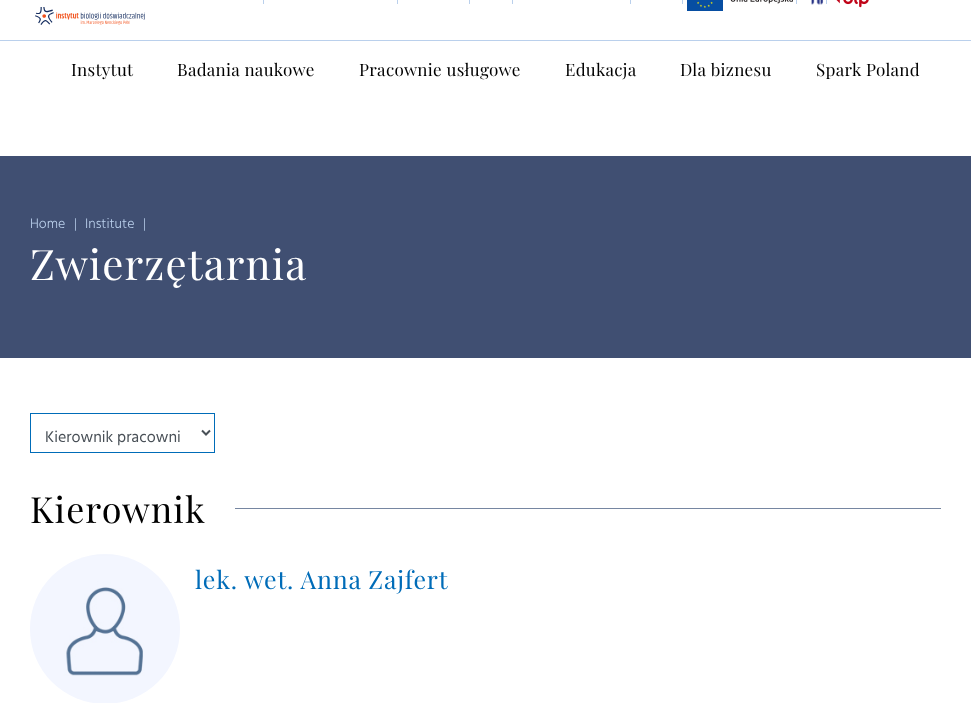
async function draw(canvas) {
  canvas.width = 971;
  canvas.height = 703;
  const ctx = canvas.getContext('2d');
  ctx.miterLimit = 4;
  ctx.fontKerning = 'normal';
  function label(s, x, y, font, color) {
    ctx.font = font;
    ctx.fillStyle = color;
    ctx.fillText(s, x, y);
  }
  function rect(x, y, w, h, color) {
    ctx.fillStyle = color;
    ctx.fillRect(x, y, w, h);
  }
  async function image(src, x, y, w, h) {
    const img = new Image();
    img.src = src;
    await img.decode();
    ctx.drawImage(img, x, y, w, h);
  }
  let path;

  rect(0, 0, 971, 703, '#fff');
  rect(0, 40, 971, 1, '#bad0ec');
  rect(263, 0, 1, 4, '#bad0ec');
  rect(397, 0, 1, 4, '#bad0ec');
  rect(469, 0, 1, 4, '#bad0ec');
  rect(512, 0, 1, 4, '#bad0ec');
  rect(630, 0, 1, 4, '#bad0ec');
  rect(682, 0, 1, 4, '#bad0ec');
  await image('assets/img1.png', 687, 0, 106, 11);
  rect(796, 0, 1, 4, '#bad0ec');
  await image('assets/img2.png', 811, 0, 13, 5);
  rect(826, 0, 1, 4, '#bad0ec');
  await image('assets/img3.png', 836, 0, 33, 8);
  await image('assets/img4.png', 35, 7, 110, 18);
  ctx.letterSpacing = '0.3px';
  label('Instytut', 71, 76, '17px Playfair Display', '#000');
  label('Badania naukowe', 177, 76, '17px Playfair Display', '#000');
  label('Pracownie usługowe', 359, 76, '17px Playfair Display', '#000');
  label('Edukacja', 565, 76, '17px Playfair Display', '#000');
  label('Dla biznesu', 680, 76, '17px Playfair Display', '#000');
  label('Spark Poland', 816, 76, '17px Playfair Display', '#000');
  rect(0, 156, 971, 202, '#404f72');
  ctx.letterSpacing = '0px';
  label('Home', 30, 228, '300 14px Hind', '#bad0ec');
  label('|', 74, 228, '300 14px Hind', '#bad0ec');
  label('Institute', 85, 228, '300 14px Hind', '#bad0ec');
  label('|', 143, 228, '300 14px Hind', '#bad0ec');
  ctx.letterSpacing = '1.1px';
  label('Zwierzętarnia', 30, 280, '42px Playfair Display', '#fff');
  ctx.strokeStyle = '#006cb8';
  ctx.strokeRect(30.5, 413.5, 184, 39);
  path = new Path2D('M202 430.5L206 434.5L210 430.5');
  ctx.strokeStyle = '#495057';
  ctx.lineWidth = 2;
  ctx.stroke(path);
  ctx.letterSpacing = '0px';
  label('Kierownik pracowni', 45, 442, '16px Hind', '#495057');
  ctx.letterSpacing = '1px';
  label('Kierownik', 30, 523, '36px Playfair Display', '#000');
  rect(235, 508, 706, 1, '#7686a1');
  await image('assets/img5.png', 30, 554, 150, 149);
  ctx.letterSpacing = '0.8px';
  label('lek. wet. Anna Zajfert', 195, 589, '25px Playfair Display', '#006cb8');
}

draw(document.querySelector('canvas'));
